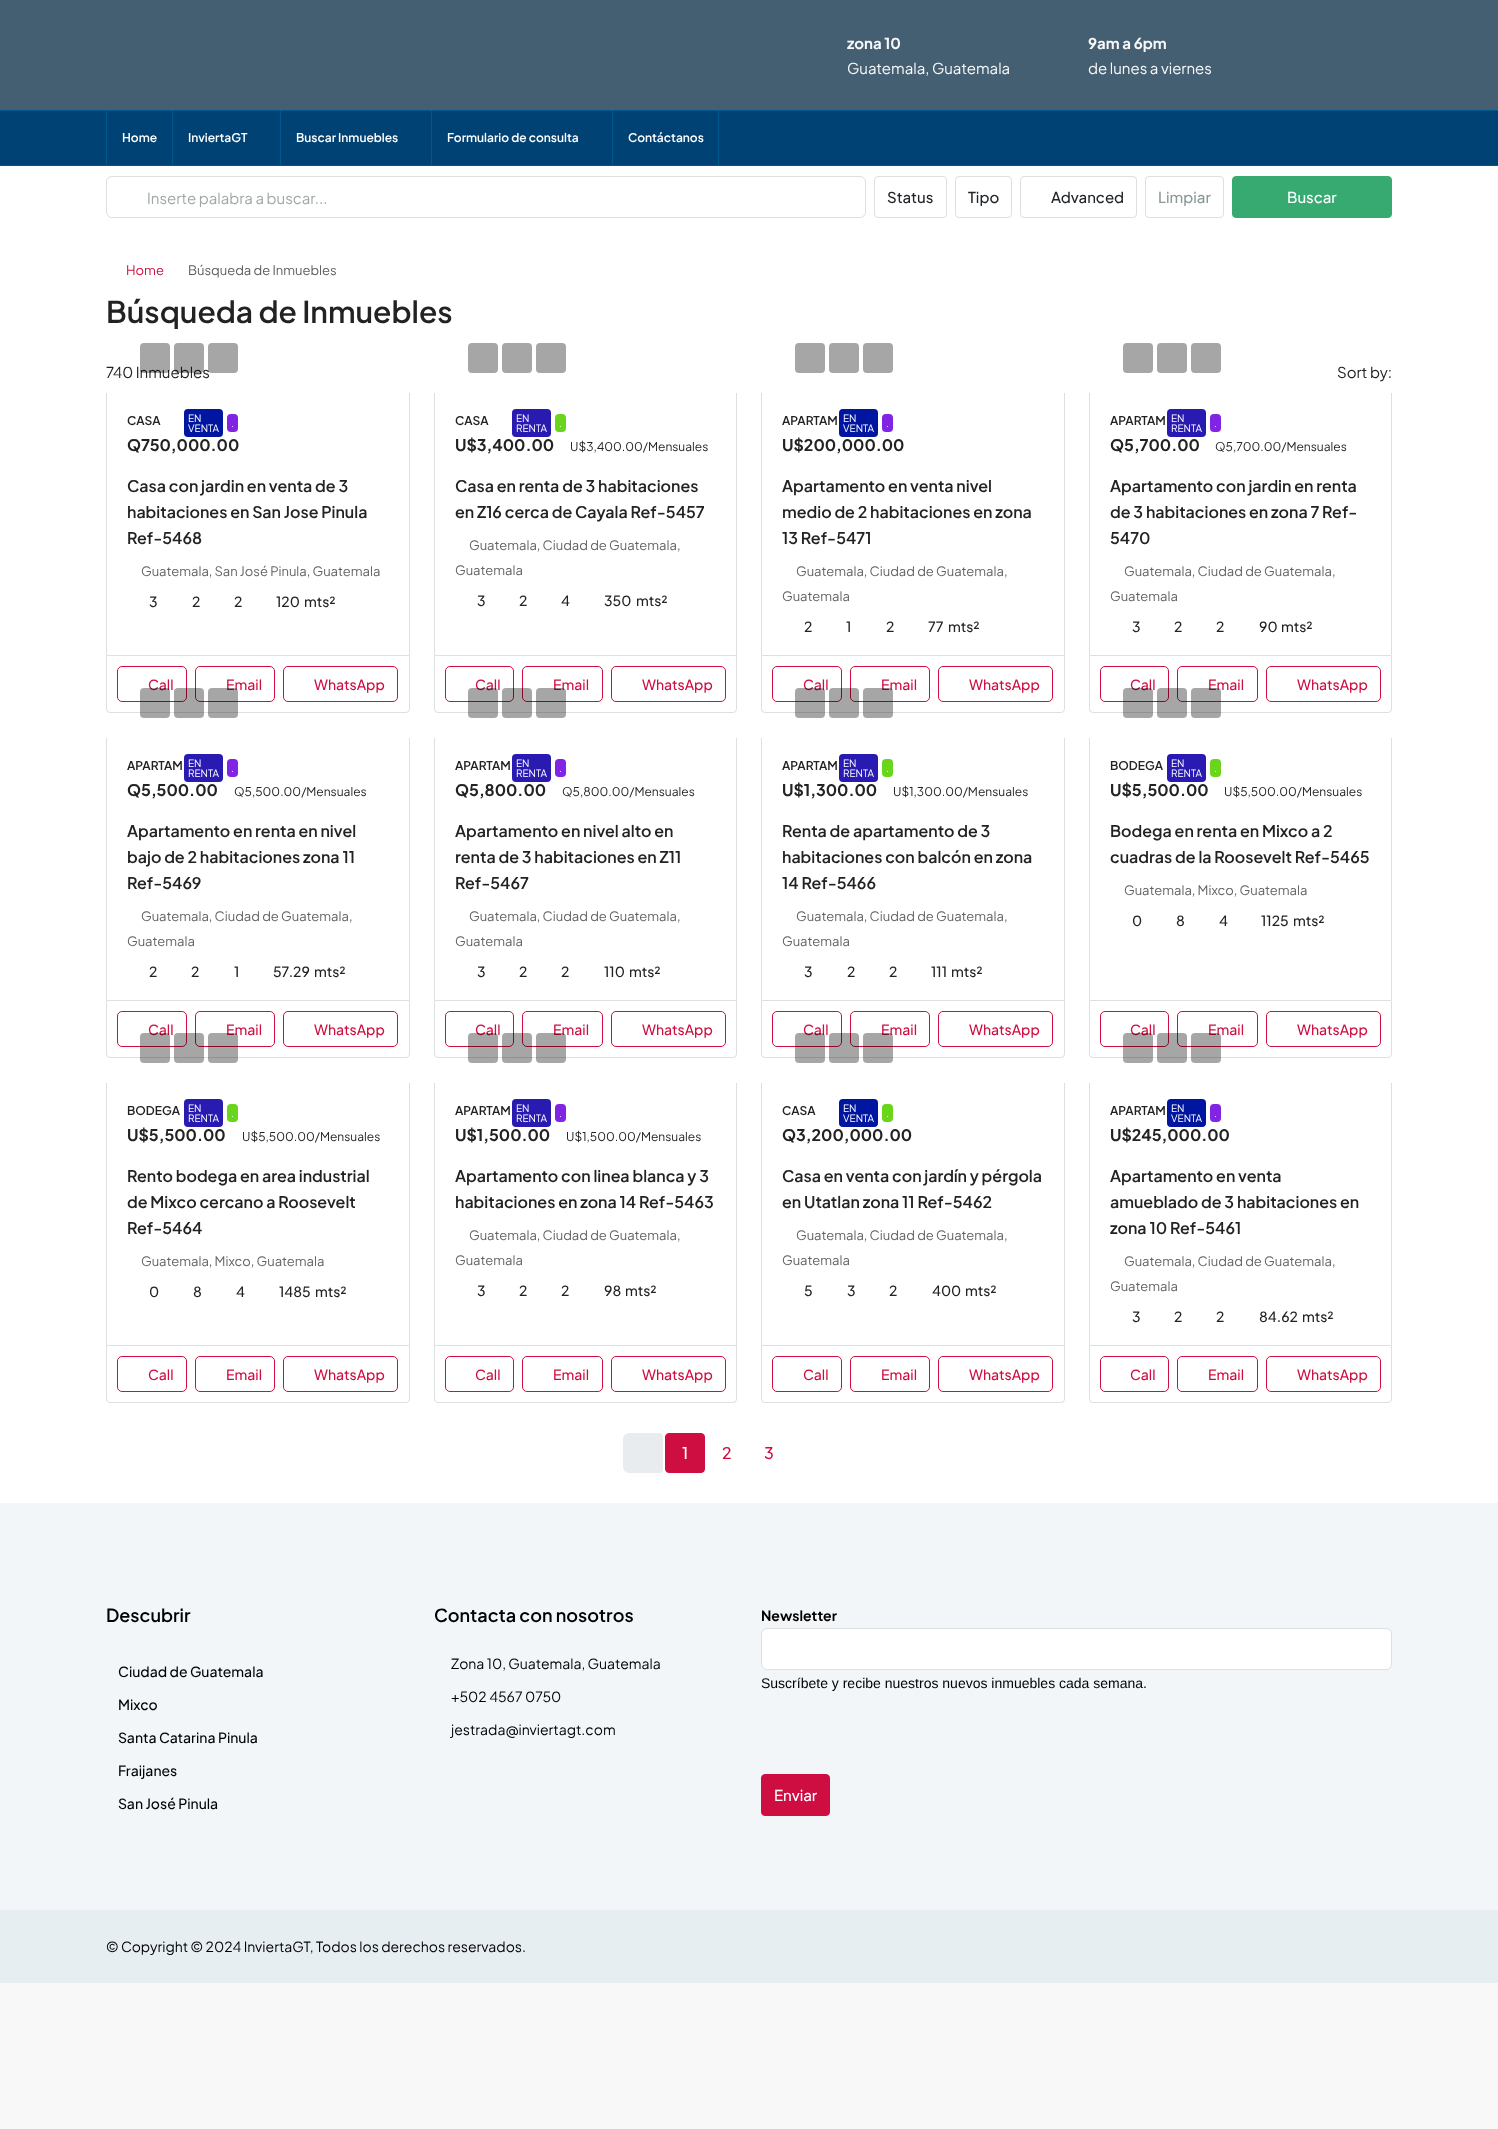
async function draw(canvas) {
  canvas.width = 1498;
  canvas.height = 2129;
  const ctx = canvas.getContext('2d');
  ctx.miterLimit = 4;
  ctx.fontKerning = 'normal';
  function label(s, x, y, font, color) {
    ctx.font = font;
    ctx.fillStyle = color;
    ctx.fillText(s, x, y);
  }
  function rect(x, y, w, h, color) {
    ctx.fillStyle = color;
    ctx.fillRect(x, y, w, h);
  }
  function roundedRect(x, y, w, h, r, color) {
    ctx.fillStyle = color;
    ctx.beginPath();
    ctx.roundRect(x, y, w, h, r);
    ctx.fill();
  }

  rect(0, 0, 1498, 2129, '#f8f8f8');
  rect(0, 166, 1498, 1337, '#fff');
  rect(0, 0, 1498, 110, '#455f72');
  label('zona 10', 847, 49, 'bold 15px Plus Jakarta Sans', '#f8f8f8');
  label('Guatemala, Guatemala', 847, 74, '15px Plus Jakarta Sans', '#f8f8f8');
  label('9am a 6pm', 1088, 49, 'bold 15px Plus Jakarta Sans', '#f8f8f8');
  label('de lunes a viernes', 1088, 74, '15px Plus Jakarta Sans', '#f8f8f8');
  rect(0, 111, 1498, 54, '#004274');
  rect(0, 110, 1498, 1, '#005890');
  rect(0, 165, 1498, 1, '#005890');
  rect(172, 111, 1, 54, '#005890');
  rect(106, 111, 1, 54, '#005890');
  label('Home', 122, 142, '600 12px Plus Jakarta Sans', '#fff');
  rect(280, 111, 1, 54, '#005890');
  label('InviertaGT', 188, 142, '600 12px Plus Jakarta Sans', '#fff');
  rect(431, 111, 1, 54, '#005890');
  label('Buscar Inmuebles', 296, 142, '600 12px Plus Jakarta Sans', '#fff');
  rect(612, 111, 1, 54, '#005890');
  label('Formulario de consulta', 447, 142, '600 12px Plus Jakarta Sans', '#fff');
  rect(718, 111, 1, 54, '#005890');
  label('Contáctanos', 628, 142, '600 12px Plus Jakarta Sans', '#fff');
  ctx.beginPath();
  ctx.roundRect(106.5, 176.5, 759, 41, 5.5);
  ctx.strokeStyle = '#dce0e0';
  ctx.stroke();
  label('Inserte palabra a buscar...', 147, 204, '15px Plus Jakarta Sans', '#a1a7a8');
  ctx.beginPath();
  ctx.roundRect(874.5, 176.5, 72, 41, 3.5);
  ctx.stroke();
  label('Status', 887, 203, '500 15px Plus Jakarta Sans', '#212529');
  ctx.beginPath();
  ctx.roundRect(955.5, 176.5, 56, 41, 3.5);
  ctx.stroke();
  label('Tipo', 968, 203, '500 15px Plus Jakarta Sans', '#212529');
  ctx.beginPath();
  ctx.roundRect(1020.5, 176.5, 116, 41, 3.5);
  ctx.stroke();
  label('Advanced', 1051, 203, '500 15px Plus Jakarta Sans', '#212529');
  ctx.beginPath();
  ctx.roundRect(1145.5, 176.5, 78, 41, 3.5);
  ctx.stroke();
  label('Limpiar', 1158, 203, '500 15px Plus Jakarta Sans', '#8b9898');
  ctx.fillStyle = '#36aa71';
  ctx.beginPath();
  ctx.roundRect(1232.5, 176.5, 159, 41, 3.5);
  ctx.fill();
  ctx.strokeStyle = '#36aa71';
  ctx.stroke();
  label('Buscar', 1287, 203, '500 15px Plus Jakarta Sans', '#fff');
  label('Home', 126, 275, '13px Plus Jakarta Sans', '#ce0e41');
  label('Búsqueda de Inmuebles', 188, 275, '13px Plus Jakarta Sans', '#595c5f');
  label('Búsqueda de Inmuebles', 106, 323, '600 30px Plus Jakarta Sans', '#222');
  label('740 Inmuebles', 106, 378, '15px Plus Jakarta Sans', '#222');
  label('Sort by:', 1337, 378, '15px Plus Jakarta Sans', '#222');
  roundedRect(140, 343, 30, 30, 4, '#00000059');
  roundedRect(174, 343, 30, 30, 4, '#00000059');
  roundedRect(208, 343, 30, 30, 4, '#00000059');
  roundedRect(184, 409, 39, 28, 4, '#0015a0');
  label('EN', 188, 422, '10px Plus Jakarta Sans', '#fff');
  label('VENTA', 188, 432, '10px Plus Jakarta Sans', '#fff');
  roundedRect(227, 414, 11, 18, 4, '#8224e3');
  label('.', 231, 427, '10px Plus Jakarta Sans', '#fff');
  rect(409, 393, 1, 262, '#dce0e0');
  rect(106, 393, 1, 262, '#dce0e0');
  label('CASA', 127, 425, '600 12px Plus Jakarta Sans', '#222');
  label('Q750,000.00', 127, 451, 'bold 16px Plus Jakarta Sans', '#222');
  label('Casa con jardin en venta de 3', 127, 492, '600 16px Plus Jakarta Sans', '#222');
  label('habitaciones en San Jose Pinula', 127, 518, '600 16px Plus Jakarta Sans', '#222');
  label('Ref-5468', 127, 544, '600 16px Plus Jakarta Sans', '#222');
  label('Guatemala, San José Pinula, Guatemala', 141, 576, '13px Plus Jakarta Sans', '#636363');
  label('3', 149, 607, '500 14px Plus Jakarta Sans', '#222');
  label('2', 192, 607, '500 14px Plus Jakarta Sans', '#222');
  label('2', 234, 607, '500 14px Plus Jakarta Sans', '#222');
  label('120', 276, 607, '500 14px Plus Jakarta Sans', '#222');
  label('mts²', 304, 607, '500 14px Plus Jakarta Sans', '#222');
  ctx.beginPath();
  ctx.roundRect(106.5, 655.5, 303, 57, [0, 0, 3.5, 3.5]);
  ctx.strokeStyle = '#dce0e0';
  ctx.stroke();
  ctx.beginPath();
  ctx.roundRect(117.5, 666.5, 69, 35, 4.5);
  ctx.strokeStyle = '#ce0e41';
  ctx.stroke();
  label('Call', 148, 690, '500 14px Plus Jakarta Sans', '#ce0e41');
  ctx.beginPath();
  ctx.roundRect(195.5, 666.5, 79, 35, 4.5);
  ctx.stroke();
  label('Email', 226, 690, '500 14px Plus Jakarta Sans', '#ce0e41');
  ctx.beginPath();
  ctx.roundRect(283.5, 666.5, 114, 35, 4.5);
  ctx.stroke();
  label('WhatsApp', 314, 690, '500 14px Plus Jakarta Sans', '#ce0e41');
  roundedRect(468, 343, 30, 30, 4, '#a6a6a6');
  roundedRect(502, 343, 30, 30, 4, '#a6a6a6');
  roundedRect(536, 343, 30, 30, 4, '#a6a6a6');
  roundedRect(512, 409, 39, 28, 4, '#291ab2');
  label('EN', 516, 422, '10px Plus Jakarta Sans', '#fff');
  label('RENTA', 516, 432, '10px Plus Jakarta Sans', '#fff');
  roundedRect(555, 414, 11, 18, 4, '#69d61b');
  label('.', 559, 427, '10px Plus Jakarta Sans', '#fff');
  rect(736, 393, 1, 262, '#dce0e0');
  rect(434, 393, 1, 262, '#dce0e0');
  label('CASA', 455, 425, '600 12px Plus Jakarta Sans', '#222');
  label('U$3,400.00', 455, 451, 'bold 16px Plus Jakarta Sans', '#222');
  label('U$3,400.00/Mensuales', 570, 451, '12px Plus Jakarta Sans', '#222');
  label('Casa en renta de 3 habitaciones', 455, 492, '600 16px Plus Jakarta Sans', '#222');
  label('en Z16 cerca de Cayala Ref-5457', 455, 518, '600 16px Plus Jakarta Sans', '#222');
  label('Guatemala, Ciudad de Guatemala,', 469, 550, '13px Plus Jakarta Sans', '#636363');
  label('Guatemala', 455, 575, '13px Plus Jakarta Sans', '#636363');
  label('3', 477, 606, '500 14px Plus Jakarta Sans', '#222');
  label('2', 519, 606, '500 14px Plus Jakarta Sans', '#222');
  label('4', 561, 606, '500 14px Plus Jakarta Sans', '#222');
  label('350', 604, 606, '500 14px Plus Jakarta Sans', '#222');
  label('mts²', 636, 606, '500 14px Plus Jakarta Sans', '#222');
  ctx.beginPath();
  ctx.roundRect(434.5, 655.5, 302, 57, [0, 0, 3.5, 3.5]);
  ctx.strokeStyle = '#dce0e0';
  ctx.stroke();
  ctx.beginPath();
  ctx.roundRect(445.5, 666.5, 68, 35, 4.5);
  ctx.strokeStyle = '#ce0e41';
  ctx.stroke();
  label('Call', 475, 690, '500 14px Plus Jakarta Sans', '#ce0e41');
  ctx.beginPath();
  ctx.roundRect(522.5, 666.5, 80, 35, 4.5);
  ctx.stroke();
  label('Email', 553, 690, '500 14px Plus Jakarta Sans', '#ce0e41');
  ctx.beginPath();
  ctx.roundRect(611.5, 666.5, 114, 35, 4.5);
  ctx.stroke();
  label('WhatsApp', 642, 690, '500 14px Plus Jakarta Sans', '#ce0e41');
  roundedRect(795, 343, 30, 30, 4, '#a6a6a6');
  roundedRect(829, 343, 30, 30, 4, '#a6a6a6');
  roundedRect(863, 343, 30, 30, 4, '#a6a6a6');
  roundedRect(839, 409, 39, 28, 4, '#0015a0');
  label('EN', 843, 422, '10px Plus Jakarta Sans', '#fff');
  label('VENTA', 843, 432, '10px Plus Jakarta Sans', '#fff');
  roundedRect(882, 414, 11, 18, 4, '#8224e3');
  label('.', 886, 427, '10px Plus Jakarta Sans', '#fff');
  rect(1064, 393, 1, 262, '#dce0e0');
  rect(761, 393, 1, 262, '#dce0e0');
  label('APARTAM', 782, 425, '600 12px Plus Jakarta Sans', '#222');
  label('U$200,000.00', 782, 451, 'bold 16px Plus Jakarta Sans', '#222');
  label('Apartamento en venta nivel', 782, 492, '600 16px Plus Jakarta Sans', '#222');
  label('medio de 2 habitaciones en zona', 782, 518, '600 16px Plus Jakarta Sans', '#222');
  label('13 Ref-5471', 782, 544, '600 16px Plus Jakarta Sans', '#222');
  label('Guatemala, Ciudad de Guatemala,', 796, 576, '13px Plus Jakarta Sans', '#636363');
  label('Guatemala', 782, 601, '13px Plus Jakarta Sans', '#636363');
  label('2', 804, 632, '500 14px Plus Jakarta Sans', '#222');
  label('1', 846, 632, '500 14px Plus Jakarta Sans', '#222');
  label('2', 886, 632, '500 14px Plus Jakarta Sans', '#222');
  label('77', 928, 632, '500 14px Plus Jakarta Sans', '#222');
  label('mts²', 948, 632, '500 14px Plus Jakarta Sans', '#222');
  ctx.beginPath();
  ctx.roundRect(761.5, 655.5, 303, 57, [0, 0, 3.5, 3.5]);
  ctx.strokeStyle = '#dce0e0';
  ctx.stroke();
  ctx.beginPath();
  ctx.roundRect(772.5, 666.5, 69, 35, 4.5);
  ctx.strokeStyle = '#ce0e41';
  ctx.stroke();
  label('Call', 803, 690, '500 14px Plus Jakarta Sans', '#ce0e41');
  ctx.beginPath();
  ctx.roundRect(850.5, 666.5, 79, 35, 4.5);
  ctx.stroke();
  label('Email', 881, 690, '500 14px Plus Jakarta Sans', '#ce0e41');
  ctx.beginPath();
  ctx.roundRect(938.5, 666.5, 114, 35, 4.5);
  ctx.stroke();
  label('WhatsApp', 969, 690, '500 14px Plus Jakarta Sans', '#ce0e41');
  roundedRect(1123, 343, 30, 30, 4, '#a6a6a6');
  roundedRect(1157, 343, 30, 30, 4, '#a6a6a6');
  roundedRect(1191, 343, 30, 30, 4, '#a6a6a6');
  roundedRect(1167, 409, 39, 28, 4, '#291ab2');
  label('EN', 1171, 422, '10px Plus Jakarta Sans', '#fff');
  label('RENTA', 1171, 432, '10px Plus Jakarta Sans', '#fff');
  roundedRect(1210, 414, 11, 18, 4, '#8224e3');
  label('.', 1214, 427, '10px Plus Jakarta Sans', '#fff');
  rect(1391, 393, 1, 262, '#dce0e0');
  rect(1089, 393, 1, 262, '#dce0e0');
  label('APARTAM', 1110, 425, '600 12px Plus Jakarta Sans', '#222');
  label('Q5,700.00', 1110, 451, 'bold 16px Plus Jakarta Sans', '#222');
  label('Q5,700.00/Mensuales', 1215, 451, '12px Plus Jakarta Sans', '#222');
  label('Apartamento con jardin en renta', 1110, 492, '600 16px Plus Jakarta Sans', '#222');
  label('de 3 habitaciones en zona 7 Ref-', 1110, 518, '600 16px Plus Jakarta Sans', '#222');
  label('5470', 1110, 544, '600 16px Plus Jakarta Sans', '#222');
  label('Guatemala, Ciudad de Guatemala,', 1124, 576, '13px Plus Jakarta Sans', '#636363');
  label('Guatemala', 1110, 601, '13px Plus Jakarta Sans', '#636363');
  label('3', 1132, 632, '500 14px Plus Jakarta Sans', '#222');
  label('2', 1174, 632, '500 14px Plus Jakarta Sans', '#222');
  label('2', 1216, 632, '500 14px Plus Jakarta Sans', '#222');
  label('90', 1259, 632, '500 14px Plus Jakarta Sans', '#222');
  label('mts²', 1281, 632, '500 14px Plus Jakarta Sans', '#222');
  ctx.beginPath();
  ctx.roundRect(1089.5, 655.5, 302, 57, [0, 0, 3.5, 3.5]);
  ctx.strokeStyle = '#dce0e0';
  ctx.stroke();
  ctx.beginPath();
  ctx.roundRect(1100.5, 666.5, 68, 35, 4.5);
  ctx.strokeStyle = '#ce0e41';
  ctx.stroke();
  label('Call', 1130, 690, '500 14px Plus Jakarta Sans', '#ce0e41');
  ctx.beginPath();
  ctx.roundRect(1177.5, 666.5, 80, 35, 4.5);
  ctx.stroke();
  label('Email', 1208, 690, '500 14px Plus Jakarta Sans', '#ce0e41');
  ctx.beginPath();
  ctx.roundRect(1266.5, 666.5, 114, 35, 4.5);
  ctx.stroke();
  label('WhatsApp', 1297, 690, '500 14px Plus Jakarta Sans', '#ce0e41');
  roundedRect(140, 688, 30, 30, 4, '#00000059');
  roundedRect(174, 688, 30, 30, 4, '#00000059');
  roundedRect(208, 688, 30, 30, 4, '#00000059');
  roundedRect(184, 754, 39, 28, 4, '#291ab2');
  label('EN', 188, 767, '10px Plus Jakarta Sans', '#fff');
  label('RENTA', 188, 777, '10px Plus Jakarta Sans', '#fff');
  roundedRect(227, 759, 11, 18, 4, '#8224e3');
  label('.', 231, 772, '10px Plus Jakarta Sans', '#fff');
  rect(409, 738, 1, 262, '#dce0e0');
  rect(106, 738, 1, 262, '#dce0e0');
  label('APARTAM', 127, 770, '600 12px Plus Jakarta Sans', '#222');
  label('Q5,500.00', 127, 796, 'bold 16px Plus Jakarta Sans', '#222');
  label('Q5,500.00/Mensuales', 234, 796, '12px Plus Jakarta Sans', '#222');
  label('Apartamento en renta en nivel', 127, 837, '600 16px Plus Jakarta Sans', '#222');
  label('bajo de 2 habitaciones zona 11', 127, 863, '600 16px Plus Jakarta Sans', '#222');
  label('Ref-5469', 127, 889, '600 16px Plus Jakarta Sans', '#222');
  label('Guatemala, Ciudad de Guatemala,', 141, 921, '13px Plus Jakarta Sans', '#636363');
  label('Guatemala', 127, 946, '13px Plus Jakarta Sans', '#636363');
  label('2', 149, 977, '500 14px Plus Jakarta Sans', '#222');
  label('2', 191, 977, '500 14px Plus Jakarta Sans', '#222');
  label('1', 234, 977, '500 14px Plus Jakarta Sans', '#222');
  label('57.29', 273, 977, '500 14px Plus Jakarta Sans', '#222');
  label('mts²', 314, 977, '500 14px Plus Jakarta Sans', '#222');
  ctx.beginPath();
  ctx.roundRect(106.5, 1000.5, 303, 57, [0, 0, 3.5, 3.5]);
  ctx.strokeStyle = '#dce0e0';
  ctx.stroke();
  ctx.beginPath();
  ctx.roundRect(117.5, 1011.5, 69, 35, 4.5);
  ctx.strokeStyle = '#ce0e41';
  ctx.stroke();
  label('Call', 148, 1035, '500 14px Plus Jakarta Sans', '#ce0e41');
  ctx.beginPath();
  ctx.roundRect(195.5, 1011.5, 79, 35, 4.5);
  ctx.stroke();
  label('Email', 226, 1035, '500 14px Plus Jakarta Sans', '#ce0e41');
  ctx.beginPath();
  ctx.roundRect(283.5, 1011.5, 114, 35, 4.5);
  ctx.stroke();
  label('WhatsApp', 314, 1035, '500 14px Plus Jakarta Sans', '#ce0e41');
  roundedRect(468, 688, 30, 30, 4, '#00000059');
  roundedRect(502, 688, 30, 30, 4, '#00000059');
  roundedRect(536, 688, 30, 30, 4, '#00000059');
  roundedRect(512, 754, 39, 28, 4, '#291ab2');
  label('EN', 516, 767, '10px Plus Jakarta Sans', '#fff');
  label('RENTA', 516, 777, '10px Plus Jakarta Sans', '#fff');
  roundedRect(555, 759, 11, 18, 4, '#8224e3');
  label('.', 559, 772, '10px Plus Jakarta Sans', '#fff');
  rect(736, 738, 1, 262, '#dce0e0');
  rect(434, 738, 1, 262, '#dce0e0');
  label('APARTAM', 455, 770, '600 12px Plus Jakarta Sans', '#222');
  label('Q5,800.00', 455, 796, 'bold 16px Plus Jakarta Sans', '#222');
  label('Q5,800.00/Mensuales', 562, 796, '12px Plus Jakarta Sans', '#222');
  label('Apartamento en nivel alto en', 455, 837, '600 16px Plus Jakarta Sans', '#222');
  label('renta de 3 habitaciones en Z11', 455, 863, '600 16px Plus Jakarta Sans', '#222');
  label('Ref-5467', 455, 889, '600 16px Plus Jakarta Sans', '#222');
  label('Guatemala, Ciudad de Guatemala,', 469, 921, '13px Plus Jakarta Sans', '#636363');
  label('Guatemala', 455, 946, '13px Plus Jakarta Sans', '#636363');
  label('3', 477, 977, '500 14px Plus Jakarta Sans', '#222');
  label('2', 519, 977, '500 14px Plus Jakarta Sans', '#222');
  label('2', 561, 977, '500 14px Plus Jakarta Sans', '#222');
  label('110', 604, 977, '500 14px Plus Jakarta Sans', '#222');
  label('mts²', 629, 977, '500 14px Plus Jakarta Sans', '#222');
  ctx.beginPath();
  ctx.roundRect(434.5, 1000.5, 302, 57, [0, 0, 3.5, 3.5]);
  ctx.strokeStyle = '#dce0e0';
  ctx.stroke();
  ctx.beginPath();
  ctx.roundRect(445.5, 1011.5, 68, 35, 4.5);
  ctx.strokeStyle = '#ce0e41';
  ctx.stroke();
  label('Call', 475, 1035, '500 14px Plus Jakarta Sans', '#ce0e41');
  ctx.beginPath();
  ctx.roundRect(522.5, 1011.5, 80, 35, 4.5);
  ctx.stroke();
  label('Email', 553, 1035, '500 14px Plus Jakarta Sans', '#ce0e41');
  ctx.beginPath();
  ctx.roundRect(611.5, 1011.5, 114, 35, 4.5);
  ctx.stroke();
  label('WhatsApp', 642, 1035, '500 14px Plus Jakarta Sans', '#ce0e41');
  roundedRect(795, 688, 30, 30, 4, '#00000059');
  roundedRect(829, 688, 30, 30, 4, '#00000059');
  roundedRect(863, 688, 30, 30, 4, '#00000059');
  roundedRect(839, 754, 39, 28, 4, '#291ab2');
  label('EN', 843, 767, '10px Plus Jakarta Sans', '#fff');
  label('RENTA', 843, 777, '10px Plus Jakarta Sans', '#fff');
  roundedRect(882, 759, 11, 18, 4, '#69d61b');
  label('.', 886, 772, '10px Plus Jakarta Sans', '#fff');
  rect(1064, 738, 1, 262, '#dce0e0');
  rect(761, 738, 1, 262, '#dce0e0');
  label('APARTAM', 782, 770, '600 12px Plus Jakarta Sans', '#222');
  label('U$1,300.00', 782, 796, 'bold 16px Plus Jakarta Sans', '#222');
  label('U$1,300.00/Mensuales', 893, 796, '12px Plus Jakarta Sans', '#222');
  label('Renta de apartamento de 3', 782, 837, '600 16px Plus Jakarta Sans', '#222');
  label('habitaciones con balcón en zona', 782, 863, '600 16px Plus Jakarta Sans', '#222');
  label('14 Ref-5466', 782, 889, '600 16px Plus Jakarta Sans', '#222');
  label('Guatemala, Ciudad de Guatemala,', 796, 921, '13px Plus Jakarta Sans', '#636363');
  label('Guatemala', 782, 946, '13px Plus Jakarta Sans', '#636363');
  label('3', 804, 977, '500 14px Plus Jakarta Sans', '#222');
  label('2', 847, 977, '500 14px Plus Jakarta Sans', '#222');
  label('2', 889, 977, '500 14px Plus Jakarta Sans', '#222');
  label('111', 931, 977, '500 14px Plus Jakarta Sans', '#222');
  label('mts²', 951, 977, '500 14px Plus Jakarta Sans', '#222');
  ctx.beginPath();
  ctx.roundRect(761.5, 1000.5, 303, 57, [0, 0, 3.5, 3.5]);
  ctx.strokeStyle = '#dce0e0';
  ctx.stroke();
  ctx.beginPath();
  ctx.roundRect(772.5, 1011.5, 69, 35, 4.5);
  ctx.strokeStyle = '#ce0e41';
  ctx.stroke();
  label('Call', 803, 1035, '500 14px Plus Jakarta Sans', '#ce0e41');
  ctx.beginPath();
  ctx.roundRect(850.5, 1011.5, 79, 35, 4.5);
  ctx.stroke();
  label('Email', 881, 1035, '500 14px Plus Jakarta Sans', '#ce0e41');
  ctx.beginPath();
  ctx.roundRect(938.5, 1011.5, 114, 35, 4.5);
  ctx.stroke();
  label('WhatsApp', 969, 1035, '500 14px Plus Jakarta Sans', '#ce0e41');
  roundedRect(1123, 688, 30, 30, 4, '#00000059');
  roundedRect(1157, 688, 30, 30, 4, '#00000059');
  roundedRect(1191, 688, 30, 30, 4, '#00000059');
  roundedRect(1167, 754, 39, 28, 4, '#291ab2');
  label('EN', 1171, 767, '10px Plus Jakarta Sans', '#fff');
  label('RENTA', 1171, 777, '10px Plus Jakarta Sans', '#fff');
  roundedRect(1210, 759, 11, 18, 4, '#69d61b');
  label('.', 1214, 772, '10px Plus Jakarta Sans', '#fff');
  rect(1391, 738, 1, 262, '#dce0e0');
  rect(1089, 738, 1, 262, '#dce0e0');
  label('BODEGA', 1110, 770, '600 12px Plus Jakarta Sans', '#222');
  label('U$5,500.00', 1110, 796, 'bold 16px Plus Jakarta Sans', '#222');
  label('U$5,500.00/Mensuales', 1224, 796, '12px Plus Jakarta Sans', '#222');
  label('Bodega en renta en Mixco a 2', 1110, 837, '600 16px Plus Jakarta Sans', '#222');
  label('cuadras de la Roosevelt Ref-5465', 1110, 863, '600 16px Plus Jakarta Sans', '#222');
  label('Guatemala, Mixco, Guatemala', 1124, 895, '13px Plus Jakarta Sans', '#636363');
  label('0', 1132, 926, '500 14px Plus Jakarta Sans', '#222');
  label('8', 1176, 926, '500 14px Plus Jakarta Sans', '#222');
  label('4', 1219, 926, '500 14px Plus Jakarta Sans', '#222');
  label('1125', 1261, 926, '500 14px Plus Jakarta Sans', '#222');
  label('mts²', 1293, 926, '500 14px Plus Jakarta Sans', '#222');
  ctx.beginPath();
  ctx.roundRect(1089.5, 1000.5, 302, 57, [0, 0, 3.5, 3.5]);
  ctx.strokeStyle = '#dce0e0';
  ctx.stroke();
  ctx.beginPath();
  ctx.roundRect(1100.5, 1011.5, 68, 35, 4.5);
  ctx.strokeStyle = '#ce0e41';
  ctx.stroke();
  label('Call', 1130, 1035, '500 14px Plus Jakarta Sans', '#ce0e41');
  ctx.beginPath();
  ctx.roundRect(1177.5, 1011.5, 80, 35, 4.5);
  ctx.stroke();
  label('Email', 1208, 1035, '500 14px Plus Jakarta Sans', '#ce0e41');
  ctx.beginPath();
  ctx.roundRect(1266.5, 1011.5, 114, 35, 4.5);
  ctx.stroke();
  label('WhatsApp', 1297, 1035, '500 14px Plus Jakarta Sans', '#ce0e41');
  roundedRect(140, 1033, 30, 30, 4, '#00000059');
  roundedRect(174, 1033, 30, 30, 4, '#00000059');
  roundedRect(208, 1033, 30, 30, 4, '#00000059');
  roundedRect(184, 1099, 39, 28, 4, '#291ab2');
  label('EN', 188, 1112, '10px Plus Jakarta Sans', '#fff');
  label('RENTA', 188, 1122, '10px Plus Jakarta Sans', '#fff');
  roundedRect(227, 1104, 11, 18, 4, '#69d61b');
  label('.', 231, 1117, '10px Plus Jakarta Sans', '#fff');
  rect(409, 1083, 1, 262, '#dce0e0');
  rect(106, 1083, 1, 262, '#dce0e0');
  label('BODEGA', 127, 1115, '600 12px Plus Jakarta Sans', '#222');
  label('U$5,500.00', 127, 1141, 'bold 16px Plus Jakarta Sans', '#222');
  label('U$5,500.00/Mensuales', 242, 1141, '12px Plus Jakarta Sans', '#222');
  label('Rento bodega en area industrial', 127, 1182, '600 16px Plus Jakarta Sans', '#222');
  label('de Mixco cercano a Roosevelt', 127, 1208, '600 16px Plus Jakarta Sans', '#222');
  label('Ref-5464', 127, 1234, '600 16px Plus Jakarta Sans', '#222');
  label('Guatemala, Mixco, Guatemala', 141, 1266, '13px Plus Jakarta Sans', '#636363');
  label('0', 149, 1297, '500 14px Plus Jakarta Sans', '#222');
  label('8', 193, 1297, '500 14px Plus Jakarta Sans', '#222');
  label('4', 236, 1297, '500 14px Plus Jakarta Sans', '#222');
  label('1485', 279, 1297, '500 14px Plus Jakarta Sans', '#222');
  label('mts²', 315, 1297, '500 14px Plus Jakarta Sans', '#222');
  ctx.beginPath();
  ctx.roundRect(106.5, 1345.5, 303, 57, [0, 0, 3.5, 3.5]);
  ctx.strokeStyle = '#dce0e0';
  ctx.stroke();
  ctx.beginPath();
  ctx.roundRect(117.5, 1356.5, 69, 35, 4.5);
  ctx.strokeStyle = '#ce0e41';
  ctx.stroke();
  label('Call', 148, 1380, '500 14px Plus Jakarta Sans', '#ce0e41');
  ctx.beginPath();
  ctx.roundRect(195.5, 1356.5, 79, 35, 4.5);
  ctx.stroke();
  label('Email', 226, 1380, '500 14px Plus Jakarta Sans', '#ce0e41');
  ctx.beginPath();
  ctx.roundRect(283.5, 1356.5, 114, 35, 4.5);
  ctx.stroke();
  label('WhatsApp', 314, 1380, '500 14px Plus Jakarta Sans', '#ce0e41');
  roundedRect(468, 1033, 30, 30, 4, '#00000059');
  roundedRect(502, 1033, 30, 30, 4, '#00000059');
  roundedRect(536, 1033, 30, 30, 4, '#00000059');
  roundedRect(512, 1099, 39, 28, 4, '#291ab2');
  label('EN', 516, 1112, '10px Plus Jakarta Sans', '#fff');
  label('RENTA', 516, 1122, '10px Plus Jakarta Sans', '#fff');
  roundedRect(555, 1104, 11, 18, 4, '#8224e3');
  label('.', 559, 1117, '10px Plus Jakarta Sans', '#fff');
  rect(736, 1083, 1, 262, '#dce0e0');
  rect(434, 1083, 1, 262, '#dce0e0');
  label('APARTAM', 455, 1115, '600 12px Plus Jakarta Sans', '#222');
  label('U$1,500.00', 455, 1141, 'bold 16px Plus Jakarta Sans', '#222');
  label('U$1,500.00/Mensuales', 566, 1141, '12px Plus Jakarta Sans', '#222');
  label('Apartamento con linea blanca y 3', 455, 1182, '600 16px Plus Jakarta Sans', '#222');
  label('habitaciones en zona 14 Ref-5463', 455, 1208, '600 16px Plus Jakarta Sans', '#222');
  label('Guatemala, Ciudad de Guatemala,', 469, 1240, '13px Plus Jakarta Sans', '#636363');
  label('Guatemala', 455, 1265, '13px Plus Jakarta Sans', '#636363');
  label('3', 477, 1296, '500 14px Plus Jakarta Sans', '#222');
  label('2', 519, 1296, '500 14px Plus Jakarta Sans', '#222');
  label('2', 561, 1296, '500 14px Plus Jakarta Sans', '#222');
  label('98', 604, 1296, '500 14px Plus Jakarta Sans', '#222');
  label('mts²', 625, 1296, '500 14px Plus Jakarta Sans', '#222');
  ctx.beginPath();
  ctx.roundRect(434.5, 1345.5, 302, 57, [0, 0, 3.5, 3.5]);
  ctx.strokeStyle = '#dce0e0';
  ctx.stroke();
  ctx.beginPath();
  ctx.roundRect(445.5, 1356.5, 68, 35, 4.5);
  ctx.strokeStyle = '#ce0e41';
  ctx.stroke();
  label('Call', 475, 1380, '500 14px Plus Jakarta Sans', '#ce0e41');
  ctx.beginPath();
  ctx.roundRect(522.5, 1356.5, 80, 35, 4.5);
  ctx.stroke();
  label('Email', 553, 1380, '500 14px Plus Jakarta Sans', '#ce0e41');
  ctx.beginPath();
  ctx.roundRect(611.5, 1356.5, 114, 35, 4.5);
  ctx.stroke();
  label('WhatsApp', 642, 1380, '500 14px Plus Jakarta Sans', '#ce0e41');
  roundedRect(795, 1033, 30, 30, 4, '#00000059');
  roundedRect(829, 1033, 30, 30, 4, '#00000059');
  roundedRect(863, 1033, 30, 30, 4, '#00000059');
  roundedRect(839, 1099, 39, 28, 4, '#0015a0');
  label('EN', 843, 1112, '10px Plus Jakarta Sans', '#fff');
  label('VENTA', 843, 1122, '10px Plus Jakarta Sans', '#fff');
  roundedRect(882, 1104, 11, 18, 4, '#69d61b');
  label('.', 886, 1117, '10px Plus Jakarta Sans', '#fff');
  rect(1064, 1083, 1, 262, '#dce0e0');
  rect(761, 1083, 1, 262, '#dce0e0');
  label('CASA', 782, 1115, '600 12px Plus Jakarta Sans', '#222');
  label('Q3,200,000.00', 782, 1141, 'bold 16px Plus Jakarta Sans', '#222');
  label('Casa en venta con jardín y pérgola', 782, 1182, '600 16px Plus Jakarta Sans', '#222');
  label('en Utatlan zona 11 Ref-5462', 782, 1208, '600 16px Plus Jakarta Sans', '#222');
  label('Guatemala, Ciudad de Guatemala,', 796, 1240, '13px Plus Jakarta Sans', '#636363');
  label('Guatemala', 782, 1265, '13px Plus Jakarta Sans', '#636363');
  label('5', 804, 1296, '500 14px Plus Jakarta Sans', '#222');
  label('3', 847, 1296, '500 14px Plus Jakarta Sans', '#222');
  label('2', 889, 1296, '500 14px Plus Jakarta Sans', '#222');
  label('400', 932, 1296, '500 14px Plus Jakarta Sans', '#222');
  label('mts²', 965, 1296, '500 14px Plus Jakarta Sans', '#222');
  ctx.beginPath();
  ctx.roundRect(761.5, 1345.5, 303, 57, [0, 0, 3.5, 3.5]);
  ctx.strokeStyle = '#dce0e0';
  ctx.stroke();
  ctx.beginPath();
  ctx.roundRect(772.5, 1356.5, 69, 35, 4.5);
  ctx.strokeStyle = '#ce0e41';
  ctx.stroke();
  label('Call', 803, 1380, '500 14px Plus Jakarta Sans', '#ce0e41');
  ctx.beginPath();
  ctx.roundRect(850.5, 1356.5, 79, 35, 4.5);
  ctx.stroke();
  label('Email', 881, 1380, '500 14px Plus Jakarta Sans', '#ce0e41');
  ctx.beginPath();
  ctx.roundRect(938.5, 1356.5, 114, 35, 4.5);
  ctx.stroke();
  label('WhatsApp', 969, 1380, '500 14px Plus Jakarta Sans', '#ce0e41');
  roundedRect(1123, 1033, 30, 30, 4, '#00000059');
  roundedRect(1157, 1033, 30, 30, 4, '#00000059');
  roundedRect(1191, 1033, 30, 30, 4, '#00000059');
  roundedRect(1167, 1099, 39, 28, 4, '#0015a0');
  label('EN', 1171, 1112, '10px Plus Jakarta Sans', '#fff');
  label('VENTA', 1171, 1122, '10px Plus Jakarta Sans', '#fff');
  roundedRect(1210, 1104, 11, 18, 4, '#8224e3');
  label('.', 1214, 1117, '10px Plus Jakarta Sans', '#fff');
  rect(1391, 1083, 1, 262, '#dce0e0');
  rect(1089, 1083, 1, 262, '#dce0e0');
  label('APARTAM', 1110, 1115, '600 12px Plus Jakarta Sans', '#222');
  label('U$245,000.00', 1110, 1141, 'bold 16px Plus Jakarta Sans', '#222');
  label('Apartamento en venta', 1110, 1182, '600 16px Plus Jakarta Sans', '#222');
  label('amueblado de 3 habitaciones en', 1110, 1208, '600 16px Plus Jakarta Sans', '#222');
  label('zona 10 Ref-5461', 1110, 1234, '600 16px Plus Jakarta Sans', '#222');
  label('Guatemala, Ciudad de Guatemala,', 1124, 1266, '13px Plus Jakarta Sans', '#636363');
  label('Guatemala', 1110, 1291, '13px Plus Jakarta Sans', '#636363');
  label('3', 1132, 1322, '500 14px Plus Jakarta Sans', '#222');
  label('2', 1174, 1322, '500 14px Plus Jakarta Sans', '#222');
  label('2', 1216, 1322, '500 14px Plus Jakarta Sans', '#222');
  label('84.62', 1259, 1322, '500 14px Plus Jakarta Sans', '#222');
  label('mts²', 1302, 1322, '500 14px Plus Jakarta Sans', '#222');
  ctx.beginPath();
  ctx.roundRect(1089.5, 1345.5, 302, 57, [0, 0, 3.5, 3.5]);
  ctx.strokeStyle = '#dce0e0';
  ctx.stroke();
  ctx.beginPath();
  ctx.roundRect(1100.5, 1356.5, 68, 35, 4.5);
  ctx.strokeStyle = '#ce0e41';
  ctx.stroke();
  label('Call', 1130, 1380, '500 14px Plus Jakarta Sans', '#ce0e41');
  ctx.beginPath();
  ctx.roundRect(1177.5, 1356.5, 80, 35, 4.5);
  ctx.stroke();
  label('Email', 1208, 1380, '500 14px Plus Jakarta Sans', '#ce0e41');
  ctx.beginPath();
  ctx.roundRect(1266.5, 1356.5, 114, 35, 4.5);
  ctx.stroke();
  label('WhatsApp', 1297, 1380, '500 14px Plus Jakarta Sans', '#ce0e41');
  ctx.fillStyle = '#e9ecef';
  ctx.beginPath();
  ctx.roundRect(623, 1433, 40, 40, [6, 4, 4, 6]);
  ctx.fill();
  ctx.fillStyle = '#ce0e41';
  ctx.beginPath();
  ctx.roundRect(665.5, 1433.5, 39, 39, 3.5);
  ctx.fill();
  ctx.stroke();
  label('1', 682, 1459, '500 16px Plus Jakarta Sans', '#fff');
  label('2', 722, 1459, '500 16px Plus Jakarta Sans', '#ce0e41');
  label('3', 764, 1459, '500 16px Plus Jakarta Sans', '#ce0e41');
  rect(0, 1503, 1498, 407, '#f2f6f9');
  label('Descubrir', 106, 1622, '600 18px Plus Jakarta Sans', '#000');
  label('Ciudad de Guatemala', 118, 1677, '500 14px Plus Jakarta Sans', '#000');
  label('Mixco', 118, 1710, '500 14px Plus Jakarta Sans', '#000');
  label('Santa Catarina Pinula', 118, 1743, '500 14px Plus Jakarta Sans', '#000');
  label('Fraijanes', 118, 1776, '500 14px Plus Jakarta Sans', '#000');
  label('San José Pinula', 118, 1809, '500 14px Plus Jakarta Sans', '#000');
  label('Contacta con nosotros', 434, 1622, '600 18px Plus Jakarta Sans', '#000');
  label('Zona 10, Guatemala, Guatemala', 451, 1669, '14px Plus Jakarta Sans', '#000');
  label('+502 4567 0750', 451, 1702, '14px Plus Jakarta Sans', '#000');
  label('jestrada@inviertagt.com', 451, 1735, '14px Plus Jakarta Sans', '#000');
  label('Newsletter', 761, 1621, 'bold 14px Plus Jakarta Sans', '#000');
  ctx.fillStyle = '#fff';
  ctx.beginPath();
  ctx.roundRect(761.5, 1628.5, 630, 41, 5.5);
  ctx.fill();
  ctx.strokeStyle = '#dce0e0';
  ctx.stroke();
  label('Suscríbete y recibe nuestros nuevos inmuebles cada semana.', 761, 1688, '14px Liberation Sans', '#000');
  ctx.fillStyle = '#ce0e41';
  ctx.beginPath();
  ctx.roundRect(761.5, 1774.5, 68, 41, 3.5);
  ctx.fill();
  ctx.strokeStyle = '#ce0e41';
  ctx.stroke();
  label('Enviar', 774, 1801, '500 15px Plus Jakarta Sans', '#fff');
  rect(0, 1910, 1498, 73, '#e7eef2');
  label('© Copyright © 2024 InviertaGT, Todos los derechos reservados.', 106, 1952, '14px Plus Jakarta Sans', '#000');
}

draw(document.querySelector('canvas'));
